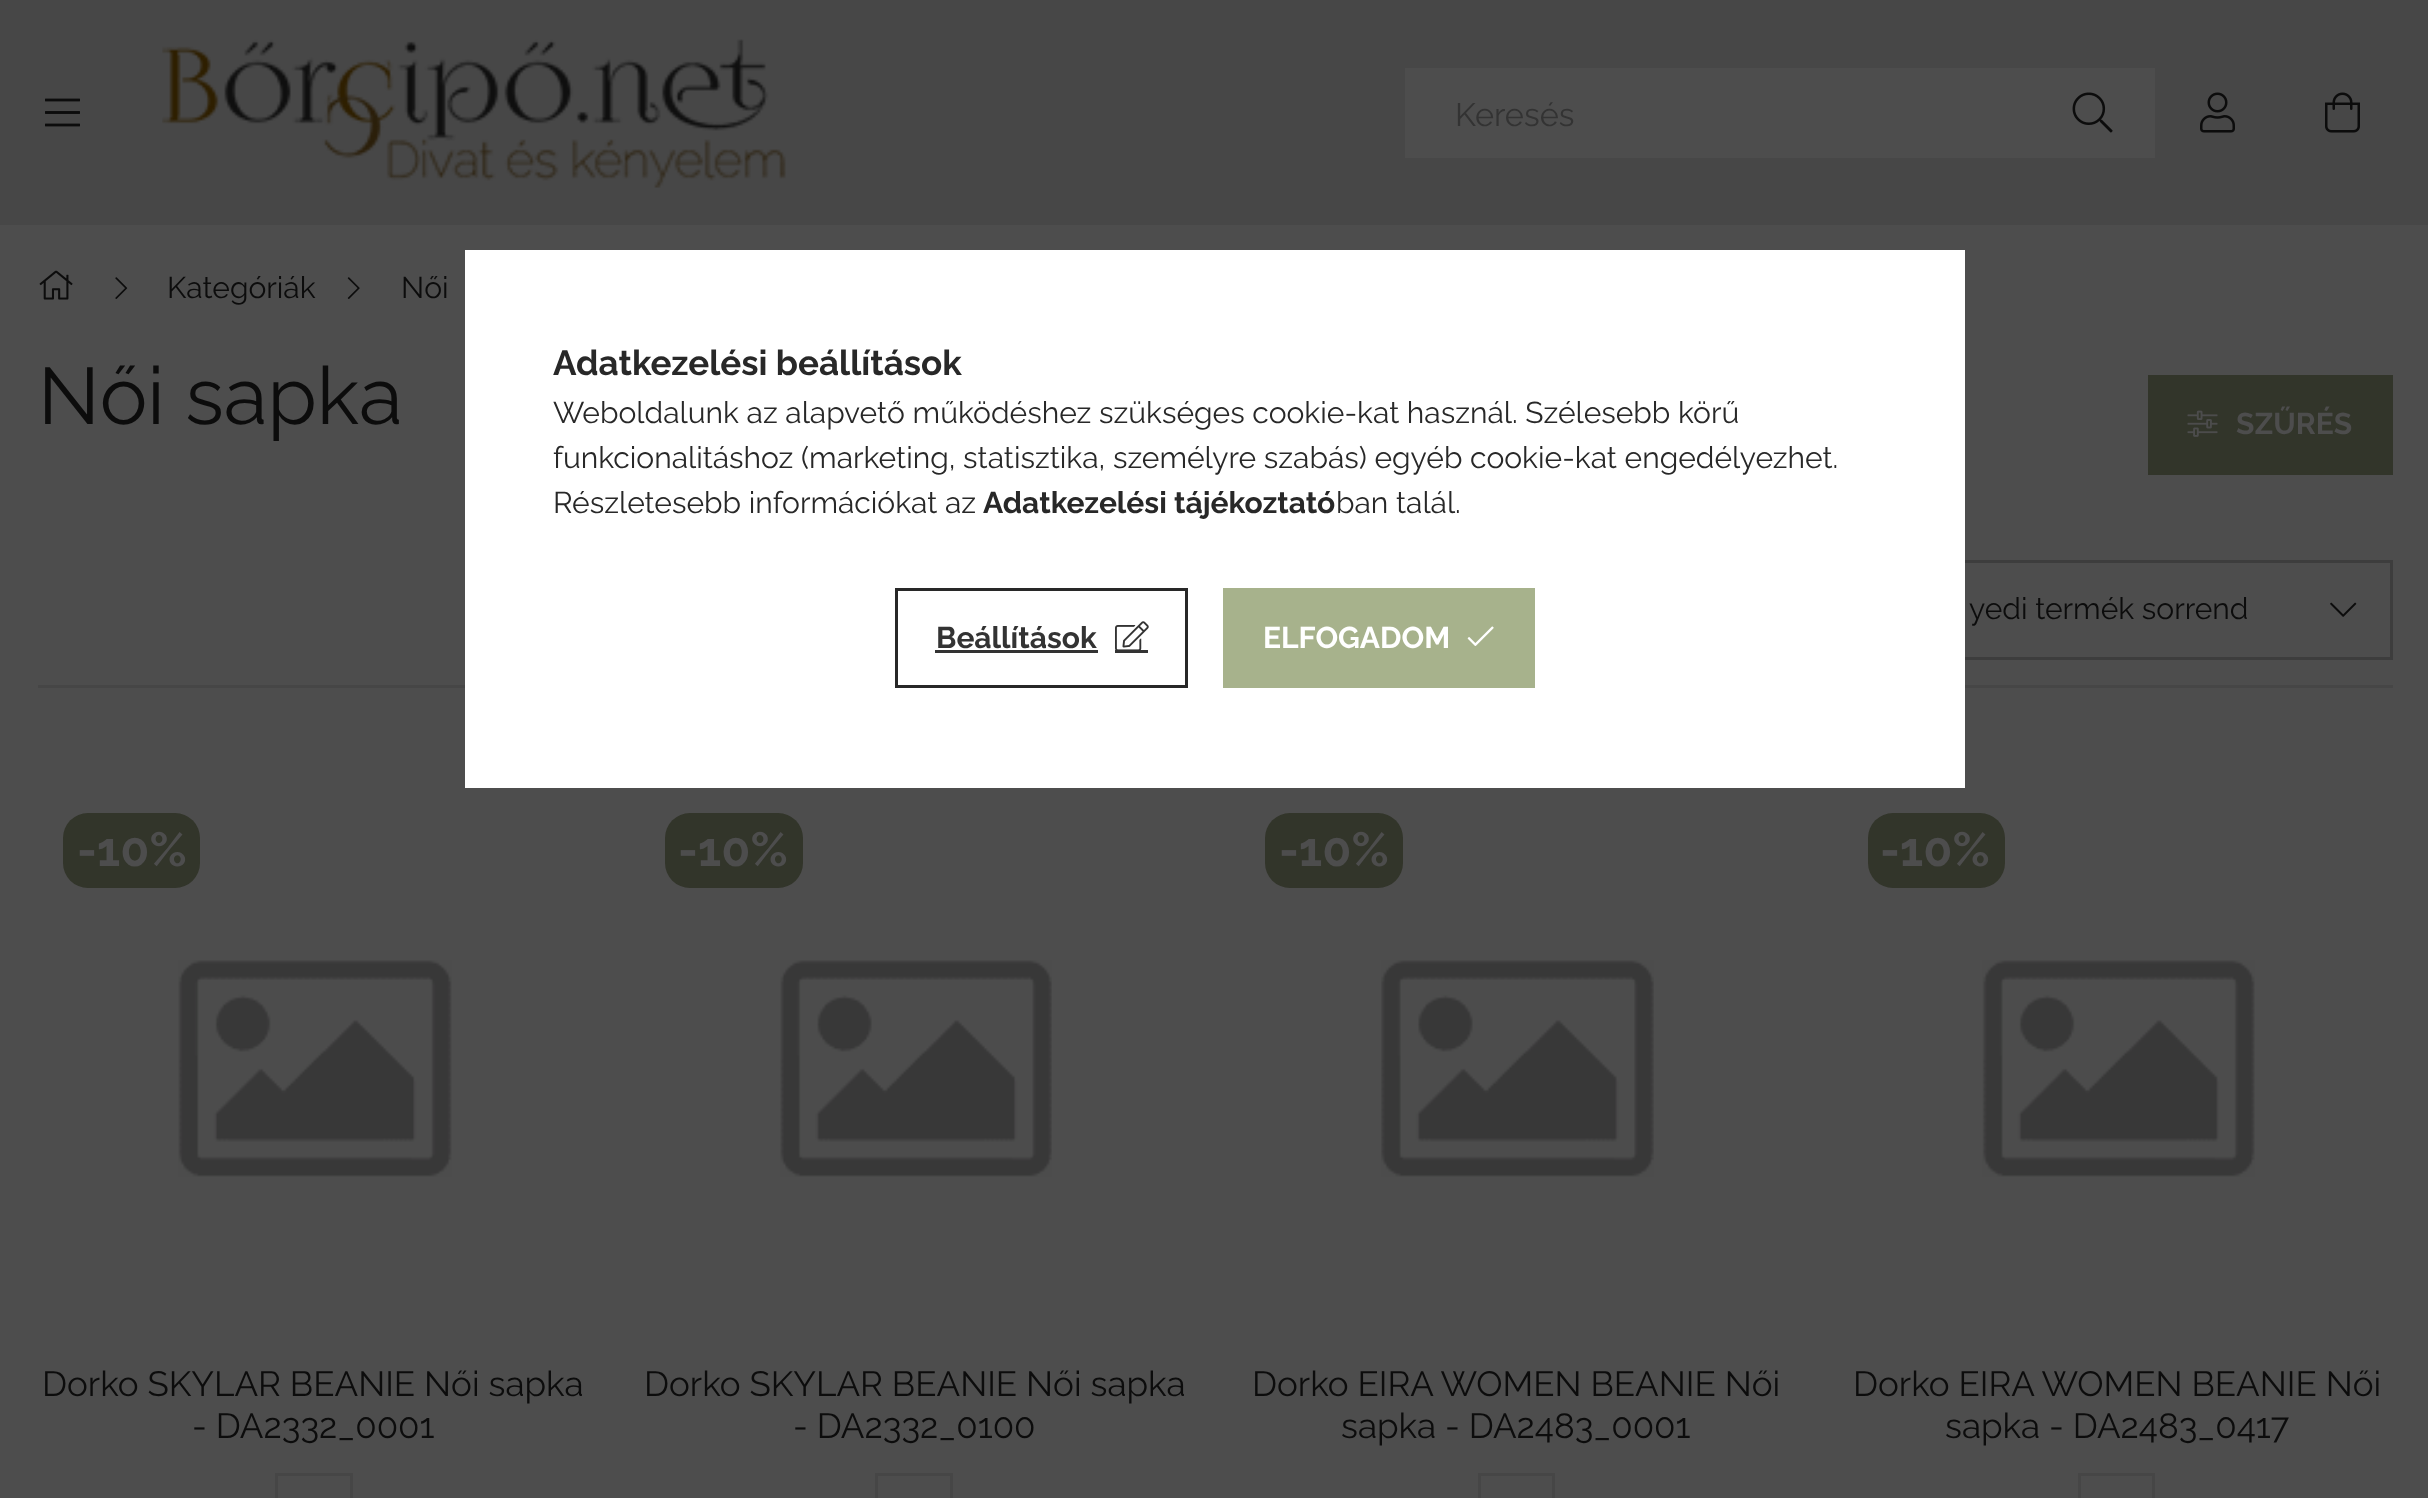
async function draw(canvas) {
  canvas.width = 2428;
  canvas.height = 1498;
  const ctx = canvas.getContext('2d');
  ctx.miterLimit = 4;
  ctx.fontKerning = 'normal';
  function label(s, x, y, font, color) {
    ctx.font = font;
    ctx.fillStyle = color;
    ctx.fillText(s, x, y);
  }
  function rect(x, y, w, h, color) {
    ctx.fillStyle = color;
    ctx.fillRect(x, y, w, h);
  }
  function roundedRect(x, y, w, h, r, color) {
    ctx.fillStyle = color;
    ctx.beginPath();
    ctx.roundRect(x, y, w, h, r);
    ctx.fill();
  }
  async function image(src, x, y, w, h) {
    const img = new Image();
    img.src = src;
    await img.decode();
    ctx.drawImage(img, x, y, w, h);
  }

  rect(0, 0, 2428, 1498, '#4d4d4d');
  rect(0, 0, 2428, 225, '#474747');
  await image('assets/img1.png', 45, 98, 35, 29);
  await image('assets/img2.png', 162, 39, 624, 149);
  rect(1405, 68, 750, 90, '#4d4d4d');
  label('Keresés', 1455, 126, '32.5px Raleway', '#333');
  await image('assets/img3.png', 2072, 92, 41, 41);
  await image('assets/img4.png', 2200, 92, 35, 41);
  await image('assets/img5.png', 2325, 92, 35, 41);
  await image('assets/img6.png', 39, 270, 34, 30);
  await image('assets/img7.png', 115, 277, 13, 22);
  label('Kategóriák', 167, 298, '30px Raleway', '#0c0c0c');
  await image('assets/img8.png', 347, 277, 13, 22);
  label('Női', 401, 298, '30px Raleway', '#0c0c0c');
  label('Női sapka', 38, 424, '80px Raleway', '#0c0c0c');
  rect(2148, 375, 245, 100, '#32352a');
  await image('assets/img9.png', 2187, 410, 31, 27);
  label('SZŰRÉS', 2236, 434, 'bold 30px Raleway', '#4d4d4d');
  rect(38, 685, 2355, 3, '#464646');
  ctx.strokeStyle = '#3d3d3d';
  ctx.lineWidth = 3;
  ctx.strokeRect(1894.5, 561.5, 497, 97);
  label('yedi termék sorrend', 1969, 619, '30px Raleway', '#0c0c0c');
  await image('assets/img10.png', 2330, 602, 27, 15);
  roundedRect(63, 813, 137, 75, 25, '#32352a');
  label('-10%', 77, 866, 'bold 47.5px Raleway', '#4d4d4d');
  await image('assets/img11.png', 178, 960, 274, 217);
  label('Dorko SKYLAR BEANIE Női sapka', 42, 1396, '35px Raleway', '#0c0c0c');
  label('- DA2332_0001', 192, 1438, '35px Raleway', '#0c0c0c');
  ctx.strokeStyle = '#464646';
  ctx.strokeRect(276.5, 1474.5, 75, 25);
  roundedRect(665, 813, 138, 75, 25, '#32352a');
  label('-10%', 678, 866, 'bold 47.5px Raleway', '#4d4d4d');
  await image('assets/img12.png', 780, 960, 272, 217);
  label('Dorko SKYLAR BEANIE Női sapka', 644, 1396, '35px Raleway', '#0c0c0c');
  label('- DA2332_0100', 793, 1438, '35px Raleway', '#0c0c0c');
  ctx.strokeRect(876.5, 1474.5, 75, 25);
  roundedRect(1265, 813, 138, 75, 25, '#32352a');
  label('-10%', 1279, 866, 'bold 47.5px Raleway', '#4d4d4d');
  await image('assets/img13.png', 1381, 960, 273, 217);
  label('Dorko EIRA WOMEN BEANIE Női', 1252, 1396, '35px Raleway', '#0c0c0c');
  label('sapka - DA2483_0001', 1341, 1438, '35px Raleway', '#0c0c0c');
  ctx.strokeRect(1479.5, 1474.5, 74, 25);
  roundedRect(1868, 813, 137, 75, 25, '#32352a');
  label('-10%', 1880, 866, 'bold 47.5px Raleway', '#4d4d4d');
  await image('assets/img14.png', 1982, 960, 273, 217);
  label('Dorko EIRA WOMEN BEANIE Női', 1853, 1396, '35px Raleway', '#0c0c0c');
  label('sapka - DA2483_0417', 1945, 1438, '35px Raleway', '#0c0c0c');
  ctx.strokeRect(2079.5, 1474.5, 74, 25);
  rect(465, 250, 1500, 538, '#fff');
  label('Adatkezelési beállítások', 553, 375, 'bold 35px Raleway', '#282828');
  label('Weboldalunk az alapvető működéshez szükséges cookie-kat használ. Szélesebb körű', 553, 423, '30px Raleway', '#282828');
  label('funkcionalitáshoz (marketing, statisztika, személyre szabás) egyéb cookie-kat engedélyezhet.', 553, 468, '30px Raleway', '#282828');
  label('Részletesebb információkat az', 553, 513, '30px Raleway', '#282828');
  label('Adatkezelési tájékoztató', 983, 513, 'bold 30px Raleway', '#282828');
  label('ban talál.', 1336, 513, '30px Raleway', '#282828');
  ctx.strokeStyle = '#282828';
  ctx.strokeRect(896.5, 589.5, 290, 97);
  label('Beállítások', 936, 648, 'bold 30px Raleway', '#333');
  rect(935, 650, 163, 3, '#333');
  await image('assets/img15.png', 1115, 621, 34, 29);
  rect(1115, 650, 33, 3, '#333');
  rect(1223, 588, 312, 100, '#a7b28c');
  label('ELFOGADOM', 1263, 648, 'bold 30px Raleway', '#fff');
  await image('assets/img16.png', 1467, 626, 27, 20);
}

draw(document.querySelector('canvas'));
